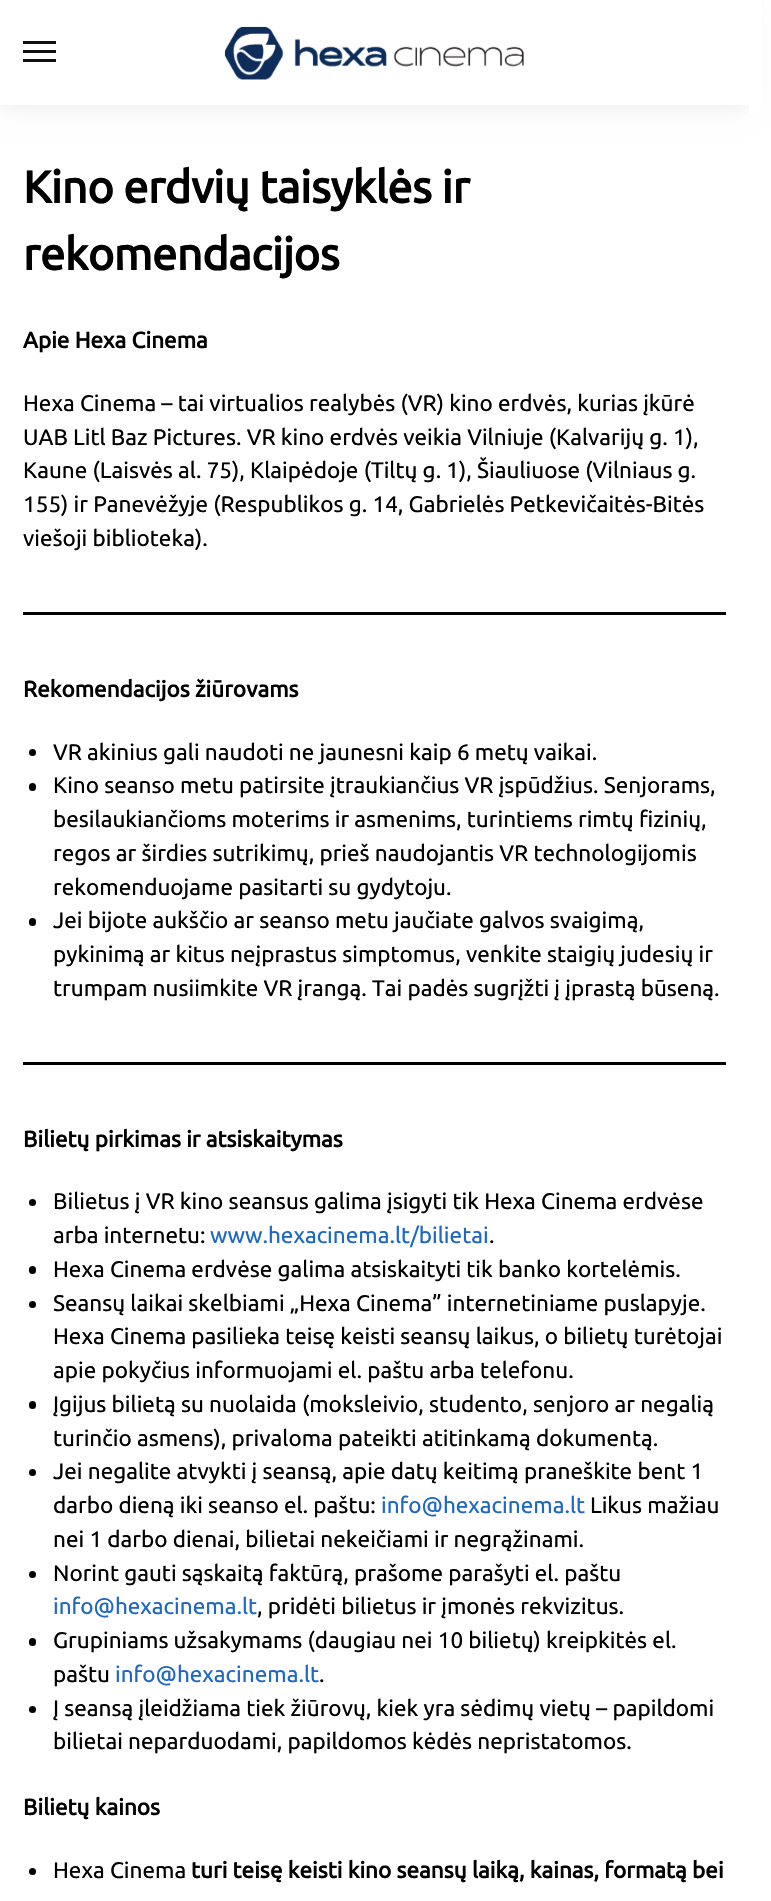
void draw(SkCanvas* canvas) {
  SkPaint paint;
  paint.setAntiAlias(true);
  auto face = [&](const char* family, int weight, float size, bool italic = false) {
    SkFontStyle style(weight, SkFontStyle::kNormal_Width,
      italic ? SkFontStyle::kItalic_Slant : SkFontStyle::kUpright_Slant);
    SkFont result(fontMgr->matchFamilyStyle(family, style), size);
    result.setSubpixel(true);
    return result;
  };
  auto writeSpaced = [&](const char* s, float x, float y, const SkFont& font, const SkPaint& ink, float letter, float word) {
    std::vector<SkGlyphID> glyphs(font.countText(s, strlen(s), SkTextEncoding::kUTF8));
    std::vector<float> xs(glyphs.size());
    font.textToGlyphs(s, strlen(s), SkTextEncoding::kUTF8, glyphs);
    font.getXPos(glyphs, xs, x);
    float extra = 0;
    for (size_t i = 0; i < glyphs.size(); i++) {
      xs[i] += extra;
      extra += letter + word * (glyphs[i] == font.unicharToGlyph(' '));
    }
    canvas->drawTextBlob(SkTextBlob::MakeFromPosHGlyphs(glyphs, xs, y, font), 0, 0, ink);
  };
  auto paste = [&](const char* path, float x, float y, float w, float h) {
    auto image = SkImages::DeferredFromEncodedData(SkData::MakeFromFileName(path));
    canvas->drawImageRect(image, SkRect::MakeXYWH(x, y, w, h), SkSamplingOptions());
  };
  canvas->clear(0xffffffff);
  paint.setColor(0x14000000);
  paint.setMaskFilter(SkMaskFilter::MakeBlur(kNormal_SkBlurStyle, 11));
  canvas->drawRect(SkRect::MakeXYWH(0, 2, 749, 105), paint);
  paint.setMaskFilter(nullptr);
  {
    const struct { float x, y, w, h; SkColor color; } items[] = {
      {0, 0, 749, 105, 0xffffffff},
      {23, 41, 33, 3, 0xff111111},
      {23, 50, 33, 3, 0xff111111},
      {23, 59, 33, 3, 0xff111111},
    };
    for (auto [x, y, w, h, color] : items) {
      paint.setColor(color);
      canvas->drawRect(SkRect::MakeXYWH(x, y, w, h), paint);
    }
  }
  paste("img/1.png", 224, 26, 300, 54);
  paint.setColor(0xffffffff);
  canvas->drawRect(SkRect::MakeXYWH(749, 0, 13, 114), paint);
  paint.setColor(0xff000000);
  canvas->drawRect(SkRect::MakeXYWH(23, 612, 703, 3), paint);
  canvas->drawCircle(32.5f, 752.5f, 3.5f, paint);
  canvas->drawRoundRect(SkRect::MakeXYWH(29, 783, 7, 8), 3.5f, 3.5f, paint);
  canvas->drawRoundRect(SkRect::MakeXYWH(29, 918, 7, 8), 3.5f, 3.5f, paint);
  canvas->drawRect(SkRect::MakeXYWH(23, 1062, 703, 3), paint);
  canvas->drawCircle(32.5f, 1202.5f, 3.5f, paint);
  canvas->drawRoundRect(SkRect::MakeXYWH(29, 1266, 7, 8), 3.5f, 3.5f, paint);
  canvas->drawCircle(32.5f, 1304.5f, 3.5f, paint);
  canvas->drawRoundRect(SkRect::MakeXYWH(29, 1401, 7, 8), 3.5f, 3.5f, paint);
  canvas->drawCircle(32.5f, 1472.5f, 3.5f, paint);
  canvas->drawCircle(32.5f, 1574.5f, 3.5f, paint);
  canvas->drawRoundRect(SkRect::MakeXYWH(29, 1638, 7, 8), 3.5f, 3.5f, paint);
  canvas->drawCircle(32.5f, 1709.5f, 3.5f, paint);
  canvas->drawCircle(32.5f, 1871.5f, 3.5f, paint);
  auto f0 = face("Ubuntu", 700, 45);
  writeSpaced("Kino erdvių taisyklės ir", 23, 203, f0, paint, -0.45f, 0);
  writeSpaced("rekomendacijos", 23, 270, f0, paint, -0.45f, 0);
  auto f1 = face("Ubuntu", 700, 22.5f);
  canvas->drawString("Apie Hexa Cinema", 23, 348, f1, paint);
  auto f2 = face("Ubuntu", 400, 22.5f);
  {
    const struct { const char* s; float x, y; } items[] = {
      {"Hexa Cinema – tai virtualios realybės (VR) kino erdvės, kurias įkūrė", 23, 411},
      {"UAB Litl Baz Pictures. VR kino erdvės veikia Vilniuje (Kalvarijų g. 1),", 23, 445},
      {"Kaune (Laisvės al. 75), Klaipėdoje (Tiltų g. 1), Šiauliuose (Vilniaus g.", 23, 478},
      {"155) ir Panevėžyje (Respublikos g. 14, Gabrielės Petkevičaitės-Bitės", 23, 512},
      {"viešoji biblioteka).", 23, 546},
    };
    for (auto [s, x, y] : items) {
      canvas->drawString(s, x, y, f2, paint);
    }
  }
  canvas->drawString("Rekomendacijos žiūrovams", 23, 697, f1, paint);
  {
    const struct { const char* s; float x, y; } items[] = {
      {"VR akinius gali naudoti ne jaunesni kaip 6 metų vaikai.", 53, 760},
      {"Kino seanso metu patirsite įtraukiančius VR įspūdžius. Senjorams,", 53, 793},
      {"besilaukiančioms moterims ir asmenims, turintiems rimtų fizinių,", 53, 827},
      {"regos ar širdies sutrikimų, prieš naudojantis VR technologijomis", 53, 861},
      {"rekomenduojame pasitarti su gydytoju.", 53, 895},
      {"Jei bijote aukščio ar seanso metu jaučiate galvos svaigimą,", 53, 928},
      {"pykinimą ar kitus neįprastus simptomus, venkite staigių judesių ir", 53, 962},
      {"trumpam nusiimkite VR įrangą. Tai padės sugrįžti į įprastą būseną.", 53, 996},
    };
    for (auto [s, x, y] : items) {
      canvas->drawString(s, x, y, f2, paint);
    }
  }
  canvas->drawString("Bilietų pirkimas ir atsiskaitymas", 23, 1147, f1, paint);
  canvas->drawString("Bilietus į VR kino seansus galima įsigyti tik Hexa Cinema erdvėse", 53, 1209, f2, paint);
  canvas->drawString("arba internetu:", 53, 1243, f2, paint);
  paint.setColor(0xff1e68c4);
  canvas->drawString("www.hexacinema.lt/bilietai", 210, 1243, f2, paint);
  paint.setColor(0xff000000);
  {
    const struct { const char* s; float x, y; } items[] = {
      {".", 489, 1243},
      {"Hexa Cinema erdvėse galima atsiskaityti tik banko kortelėmis.", 53, 1277},
      {"Seansų laikai skelbiami „Hexa Cinema” internetiniame puslapyje.", 53, 1311},
      {"Hexa Cinema pasilieka teisę keisti seansų laikus, o bilietų turėtojai", 53, 1344},
      {"apie pokyčius informuojami el. paštu arba telefonu.", 53, 1378},
      {"Įgijus bilietą su nuolaida (moksleivio, studento, senjoro ar negalią", 53, 1412},
      {"turinčio asmens), privaloma pateikti atitinkamą dokumentą.", 53, 1446},
      {"Jei negalite atvykti į seansą, apie datų keitimą praneškite bent 1", 53, 1479},
      {"darbo dieną iki seanso el. paštu:", 53, 1513},
    };
    for (auto [s, x, y] : items) {
      canvas->drawString(s, x, y, f2, paint);
    }
  }
  paint.setColor(0xff1e68c4);
  canvas->drawString("info@hexacinema.lt", 381, 1513, f2, paint);
  paint.setColor(0xff000000);
  {
    const struct { const char* s; float x, y; } items[] = {
      {"Likus mažiau", 590, 1513},
      {"nei 1 darbo dienai, bilietai nekeičiami ir negrąžinami.", 53, 1547},
      {"Norint gauti sąskaitą faktūrą, prašome parašyti el. paštu", 53, 1581},
    };
    for (auto [s, x, y] : items) {
      canvas->drawString(s, x, y, f2, paint);
    }
  }
  paint.setColor(0xff1e68c4);
  canvas->drawString("info@hexacinema.lt", 53, 1614, f2, paint);
  paint.setColor(0xff000000);
  {
    const struct { const char* s; float x, y; } items[] = {
      {", pridėti bilietus ir įmonės rekvizitus.", 257, 1614},
      {"Grupiniams užsakymams (daugiau nei 10 bilietų) kreipkitės el.", 53, 1648},
      {"paštu", 53, 1682},
    };
    for (auto [s, x, y] : items) {
      canvas->drawString(s, x, y, f2, paint);
    }
  }
  paint.setColor(0xff1e68c4);
  canvas->drawString("info@hexacinema.lt", 115, 1682, f2, paint);
  paint.setColor(0xff000000);
  {
    const struct { const char* s; float x, y; } items[] = {
      {".", 319, 1682},
      {"Į seansą įleidžiama tiek žiūrovų, kiek yra sėdimų vietų – papildomi", 53, 1716},
      {"bilietai neparduodami, papildomos kėdės nepristatomos.", 53, 1749},
    };
    for (auto [s, x, y] : items) {
      canvas->drawString(s, x, y, f2, paint);
    }
  }
  canvas->drawString("Bilietų kainos", 23, 1815, f1, paint);
  canvas->drawString("Hexa Cinema", 53, 1878, f2, paint);
  canvas->drawString("turi teisę keisti kino seansų laiką, kainas, formatą bei", 191, 1878, f1, paint);
}
